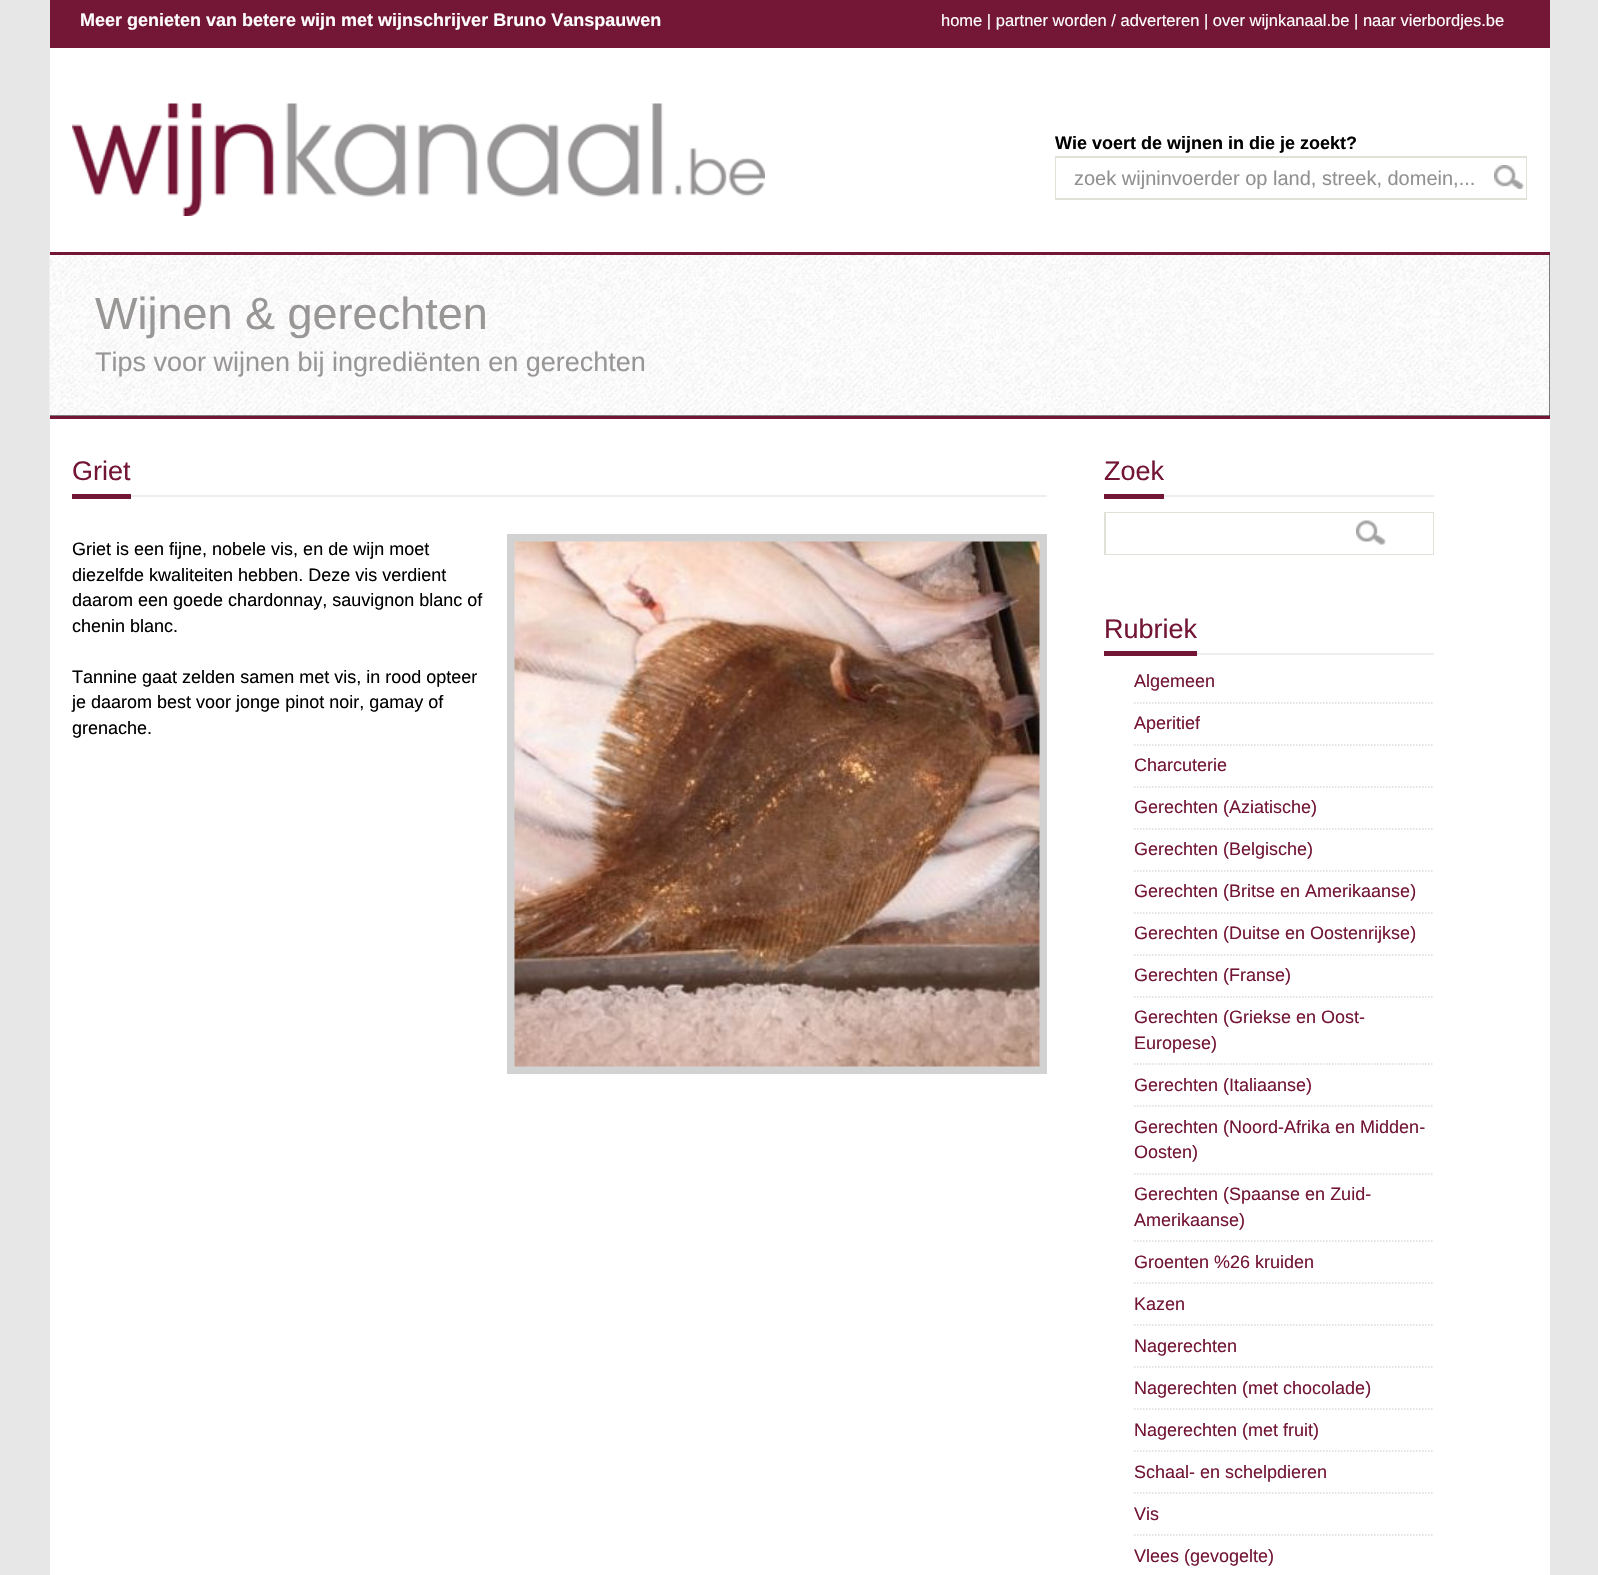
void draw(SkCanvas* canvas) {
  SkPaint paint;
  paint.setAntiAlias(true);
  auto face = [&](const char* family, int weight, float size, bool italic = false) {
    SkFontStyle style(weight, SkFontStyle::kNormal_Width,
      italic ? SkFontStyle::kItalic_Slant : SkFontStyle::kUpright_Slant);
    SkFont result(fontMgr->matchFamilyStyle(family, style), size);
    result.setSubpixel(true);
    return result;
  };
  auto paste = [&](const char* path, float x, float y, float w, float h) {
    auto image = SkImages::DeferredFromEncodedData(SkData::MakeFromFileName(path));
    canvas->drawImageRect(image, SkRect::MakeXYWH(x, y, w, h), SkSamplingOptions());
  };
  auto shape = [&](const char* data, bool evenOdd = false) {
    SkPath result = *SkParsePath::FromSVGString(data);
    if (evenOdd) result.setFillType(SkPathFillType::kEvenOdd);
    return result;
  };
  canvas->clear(0xffe7e7e7);
  paint.setColor(0xffffffff);
  canvas->drawRect(SkRect::MakeXYWH(50, 48, 1500, 1527), paint);
  paint.setColor(0xff741736);
  canvas->drawRect(SkRect::MakeXYWH(50, 0, 1500, 48), paint);
  paste("img/1.png", 72, 103, 693, 113);
  paint.setStroke(true);
  paint.setStrokeWidth(2);
  paint.setColor(0xffe0e1d7);
  canvas->drawRect(SkRect::MakeXYWH(1056, 157, 470, 42), paint);
  paint.setStroke(false);
  paint.setColor(0xffffffff);
  canvas->drawRect(SkRect::MakeXYWH(1056, 158, 470, 40), paint);
  paste("img/2.png", 1494, 165, 30, 24);
  {
    const struct { float x, y, w, h; SkColor color; } items[] = {
      {50, 255, 1500, 161, 0xff000000},
      {50, 252, 1500, 3, 0xff741736},
      {50, 416, 1500, 3, 0xff741736},
    };
    for (auto [x, y, w, h, color] : items) {
      paint.setColor(color);
      canvas->drawRect(SkRect::MakeXYWH(x, y, w, h), paint);
    }
  }
  paste("img/3.png", 49, 255, 1501, 161);
  paint.setColor(0xffeeeeee);
  canvas->drawRect(SkRect::MakeXYWH(131, 495, 916, 2), paint);
  paint.setColor(0xff731636);
  canvas->drawRect(SkRect::MakeXYWH(72, 494, 59, 5), paint);
  paint.setStroke(true);
  paint.setStrokeWidth(8);
  paint.setColor(0xffd3d2d2);
  canvas->drawRect(SkRect::MakeXYWH(511, 538, 532, 532), paint);
  paste("img/4.png", 514, 541, 526, 526);
  paint.setStroke(false);
  paint.setColor(0xffeeeeee);
  canvas->drawRect(SkRect::MakeXYWH(1164, 495, 270, 2), paint);
  paint.setColor(0xff731636);
  canvas->drawRect(SkRect::MakeXYWH(1104, 494, 60, 5), paint);
  paint.setStroke(true);
  paint.setStrokeWidth(2);
  paint.setColor(0xffe0e1d7);
  canvas->drawRect(SkRect::MakeXYWH(1105, 513, 328, 41), paint);
  paint.setStroke(false);
  paint.setColor(0xffffffff);
  canvas->drawRect(SkRect::MakeXYWH(1106, 513, 327, 41), paint);
  paste("img/5.png", 1356, 520, 30, 25);
  paint.setColor(0xffeeeeee);
  canvas->drawRect(SkRect::MakeXYWH(1197, 653, 237, 2), paint);
  paint.setColor(0xff731636);
  canvas->drawRect(SkRect::MakeXYWH(1104, 651, 93, 5), paint);
  paint.setStroke(true);
  paint.setStrokeWidth(1.5f);
  paint.setColor(0xffdbdbdb);
  paint.setPathEffect(SkDashPathEffect::Make({{1.5f, 1.5f}}, 0));
  canvas->drawPath(shape("M1134 703H1434"), paint);
  paint.setPathEffect(nullptr);
  paint.setPathEffect(SkDashPathEffect::Make({{1.5f, 1.5f}}, 0));
  canvas->drawPath(shape("M1134 745H1434"), paint);
  paint.setPathEffect(nullptr);
  paint.setPathEffect(SkDashPathEffect::Make({{1.5f, 1.5f}}, 0));
  canvas->drawPath(shape("M1134 787H1434"), paint);
  paint.setPathEffect(nullptr);
  paint.setPathEffect(SkDashPathEffect::Make({{1.5f, 1.5f}}, 0));
  canvas->drawPath(shape("M1134 829H1434"), paint);
  paint.setPathEffect(nullptr);
  paint.setPathEffect(SkDashPathEffect::Make({{1.5f, 1.5f}}, 0));
  canvas->drawPath(shape("M1134 871H1434"), paint);
  paint.setPathEffect(nullptr);
  paint.setPathEffect(SkDashPathEffect::Make({{1.5f, 1.5f}}, 0));
  canvas->drawPath(shape("M1134 913H1434"), paint);
  paint.setPathEffect(nullptr);
  paint.setPathEffect(SkDashPathEffect::Make({{1.5f, 1.5f}}, 0));
  canvas->drawPath(shape("M1134 955H1434"), paint);
  paint.setPathEffect(nullptr);
  paint.setPathEffect(SkDashPathEffect::Make({{1.5f, 1.5f}}, 0));
  canvas->drawPath(shape("M1134 997H1434"), paint);
  paint.setPathEffect(nullptr);
  paint.setPathEffect(SkDashPathEffect::Make({{1.5f, 1.5f}}, 0));
  canvas->drawPath(shape("M1134 1064H1434"), paint);
  paint.setPathEffect(nullptr);
  paint.setPathEffect(SkDashPathEffect::Make({{1.5f, 1.5f}}, 0));
  canvas->drawPath(shape("M1134 1106H1434"), paint);
  paint.setPathEffect(nullptr);
  paint.setPathEffect(SkDashPathEffect::Make({{1.5f, 1.5f}}, 0));
  canvas->drawPath(shape("M1134 1174H1434"), paint);
  paint.setPathEffect(nullptr);
  paint.setPathEffect(SkDashPathEffect::Make({{1.5f, 1.5f}}, 0));
  canvas->drawPath(shape("M1134 1241H1434"), paint);
  paint.setPathEffect(nullptr);
  paint.setPathEffect(SkDashPathEffect::Make({{1.5f, 1.5f}}, 0));
  canvas->drawPath(shape("M1134 1283H1434"), paint);
  paint.setPathEffect(nullptr);
  paint.setPathEffect(SkDashPathEffect::Make({{1.5f, 1.5f}}, 0));
  canvas->drawPath(shape("M1134 1325H1434"), paint);
  paint.setPathEffect(nullptr);
  paint.setPathEffect(SkDashPathEffect::Make({{1.5f, 1.5f}}, 0));
  canvas->drawPath(shape("M1134 1367H1434"), paint);
  paint.setPathEffect(nullptr);
  paint.setPathEffect(SkDashPathEffect::Make({{1.5f, 1.5f}}, 0));
  canvas->drawPath(shape("M1134 1409H1434"), paint);
  paint.setPathEffect(nullptr);
  paint.setPathEffect(SkDashPathEffect::Make({{1.5f, 1.5f}}, 0));
  canvas->drawPath(shape("M1134 1451H1434"), paint);
  paint.setPathEffect(nullptr);
  paint.setPathEffect(SkDashPathEffect::Make({{1.5f, 1.5f}}, 0));
  canvas->drawPath(shape("M1134 1493H1434"), paint);
  paint.setPathEffect(nullptr);
  paint.setPathEffect(SkDashPathEffect::Make({{1.5f, 1.5f}}, 0));
  canvas->drawPath(shape("M1134 1535H1434"), paint);
  paint.setPathEffect(nullptr);
  auto f0 = face("Liberation Sans", 700, 18);
  paint.setStroke(false);
  paint.setColor(0xffffffff);
  canvas->drawString("Meer genieten van betere wijn met wijnschrijver Bruno Vanspauwen", 80, 26, f0, paint);
  auto f1 = face("Liberation Sans", 400, 16.5f);
  canvas->drawString("home | partner worden / adverteren | over wijnkanaal.be | naar vierbordjes.be", 941, 26, f1, paint);
  paint.setColor(0xff000000);
  canvas->drawString("Wie voert de wijnen in die je zoekt?", 1055, 149, f0, paint);
  canvas->save();
  canvas->clipRect(SkRect::MakeXYWH(1074, 167, 413, 22));
  auto f2 = face("Liberation Sans", 400, 20);
  paint.setColor(0xff919191);
  canvas->drawString("zoek wijninvoerder op land, streek, domein,...", 1074, 185, f2, paint);
  canvas->restore();
  auto f3 = face("Liberation Sans", 400, 45);
  paint.setColor(0xff999696);
  canvas->drawString("Wijnen & gerechten", 95, 329, f3, paint);
  auto f4 = face("Liberation Sans", 400, 27);
  canvas->drawString("Tips voor wijnen bij ingrediënten en gerechten", 95, 371, f4, paint);
  paint.setColor(0xff731636);
  canvas->drawString("Griet", 72, 480, f4, paint);
  auto f5 = face("Liberation Sans", 400, 18);
  paint.setColor(0xff000000);
  {
    const struct { const char* s; float x, y; } items[] = {
      {"Griet is een fijne, nobele vis, en de wijn moet", 72, 555},
      {"diezelfde kwaliteiten hebben. Deze vis verdient", 72, 581},
      {"daarom een goede chardonnay, sauvignon blanc of", 72, 606},
      {"chenin blanc.", 72, 632},
      {"Tannine gaat zelden samen met vis, in rood opteer", 72, 683},
      {"je daarom best voor jonge pinot noir, gamay of", 72, 708},
      {"grenache.", 72, 734},
    };
    for (auto [s, x, y] : items) {
      canvas->drawString(s, x, y, f5, paint);
    }
  }
  paint.setColor(0xff731636);
  canvas->drawString("Zoek", 1104, 480, f4, paint);
  canvas->drawString("Rubriek", 1104, 638, f4, paint);
  {
    const struct { const char* s; float x, y; } items[] = {
      {"Algemeen", 1134, 687},
      {"Aperitief", 1134, 729},
      {"Charcuterie", 1134, 771},
      {"Gerechten (Aziatische)", 1134, 813},
      {"Gerechten (Belgische)", 1134, 855},
      {"Gerechten (Britse en Amerikaanse)", 1134, 897},
      {"Gerechten (Duitse en Oostenrijkse)", 1134, 939},
      {"Gerechten (Franse)", 1134, 981},
      {"Gerechten (Griekse en Oost-", 1134, 1023},
      {"Europese)", 1134, 1049},
      {"Gerechten (Italiaanse)", 1134, 1091},
      {"Gerechten (Noord-Afrika en Midden-", 1134, 1133},
      {"Oosten)", 1134, 1158},
      {"Gerechten (Spaanse en Zuid-", 1134, 1200},
      {"Amerikaanse)", 1134, 1226},
      {"Groenten %26 kruiden", 1134, 1268},
      {"Kazen", 1134, 1310},
      {"Nagerechten", 1134, 1352},
      {"Nagerechten (met chocolade)", 1134, 1394},
      {"Nagerechten (met fruit)", 1134, 1436},
      {"Schaal- en schelpdieren", 1134, 1478},
      {"Vis", 1134, 1520},
      {"Vlees (gevogelte)", 1134, 1562},
    };
    for (auto [s, x, y] : items) {
      canvas->drawString(s, x, y, f5, paint);
    }
  }
}
